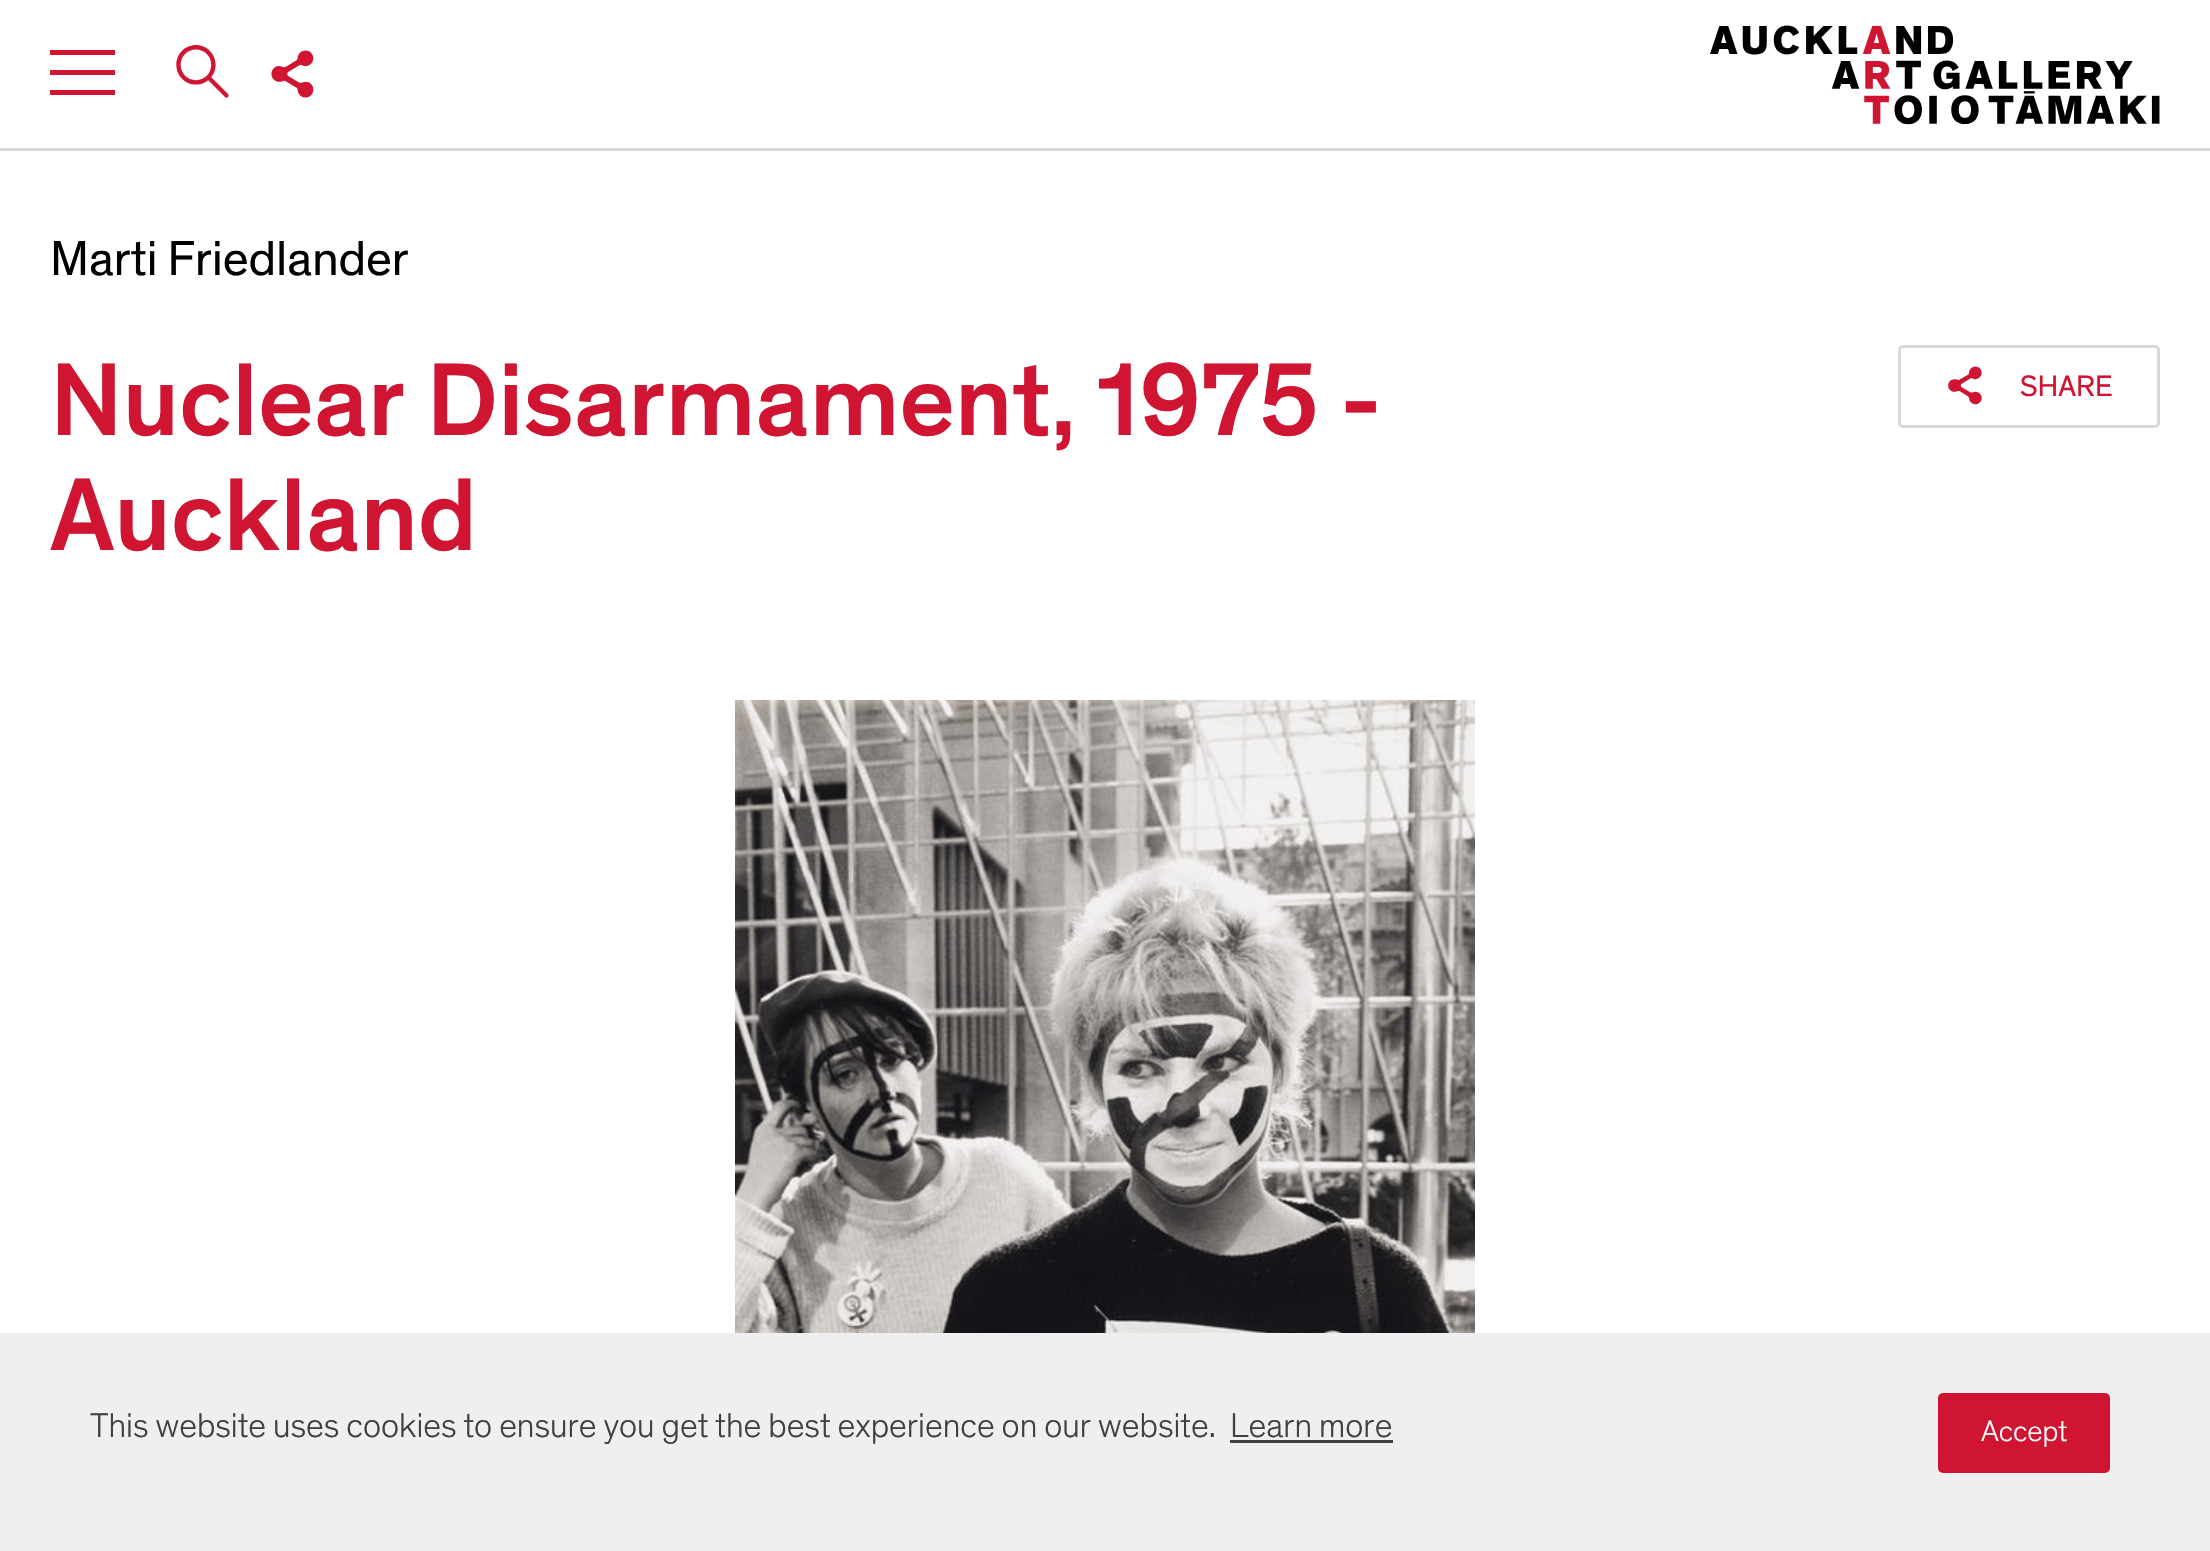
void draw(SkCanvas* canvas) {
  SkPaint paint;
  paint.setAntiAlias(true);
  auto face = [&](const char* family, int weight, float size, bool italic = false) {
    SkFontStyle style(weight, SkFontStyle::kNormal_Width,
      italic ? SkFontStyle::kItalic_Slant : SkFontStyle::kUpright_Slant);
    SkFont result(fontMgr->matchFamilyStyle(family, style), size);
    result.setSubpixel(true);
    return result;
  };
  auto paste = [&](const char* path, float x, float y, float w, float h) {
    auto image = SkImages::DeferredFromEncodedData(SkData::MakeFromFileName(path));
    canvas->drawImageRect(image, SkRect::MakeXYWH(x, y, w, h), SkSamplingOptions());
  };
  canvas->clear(0xffffffff);
  {
    const struct { float x, y, w, h; SkColor color; } items[] = {
      {0, 148, 2210, 3, 0xffd9d9d9},
      {50, 50, 65, 5, 0xffd01533},
      {50, 70, 65, 5, 0xffd01533},
      {50, 90, 65, 5, 0xffd01533},
    };
    for (auto [x, y, w, h, color] : items) {
      paint.setColor(color);
      canvas->drawRect(SkRect::MakeXYWH(x, y, w, h), paint);
    }
  }
  paste("img/1.png", 176, 45, 53, 53);
  paste("img/2.png", 271, 50, 43, 48);
  paste("img/3.png", 1710, 25, 450, 100);
  paint.setStroke(true);
  paint.setStrokeWidth(3);
  paint.setColor(0xffd9d9d9);
  canvas->drawRoundRect(SkRect::MakeXYWH(1899.5f, 346.5f, 259, 80), 3.5f, 3.5f, paint);
  paste("img/4.png", 1948, 366, 34, 39);
  paste("img/5.png", 735, 700, 740, 633);
  paint.setStroke(false);
  paint.setColor(0xffefefef);
  canvas->drawRect(SkRect::MakeXYWH(0, 1333, 2210, 218), paint);
  paint.setColor(0xff404040);
  canvas->drawRect(SkRect::MakeXYWH(1230, 1440, 163, 3), paint);
  paint.setColor(0xffd01533);
  canvas->drawRoundRect(SkRect::MakeXYWH(1938, 1393, 172, 80), 5, 5, paint);
  auto f0 = face("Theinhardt", 400, 50);
  paint.setColor(0xff000000);
  canvas->drawString("Marti Friedlander", 50, 275, f0, paint);
  auto f1 = face("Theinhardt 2", 400, 105);
  paint.setColor(0xffd01533);
  canvas->drawString("Nuclear Disarmament, 1975 -", 50, 435, f1, paint);
  canvas->drawString("Auckland", 50, 550, f1, paint);
  auto f2 = face("Theinhardt", 400, 30);
  canvas->drawString("SHARE", 2020, 396, f2, paint);
  auto f3 = face("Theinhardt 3", 400, 35);
  paint.setColor(0xff404040);
  canvas->drawString("This website uses cookies to ensure you get the best experience on our website.", 90, 1437, f3, paint);
  canvas->drawString("Learn more", 1230, 1437, f3, paint);
  auto f4 = face("Theinhardt 3", 400, 30);
  paint.setColor(0xffffffff);
  canvas->drawString("Accept", 1981, 1441, f4, paint);
}
